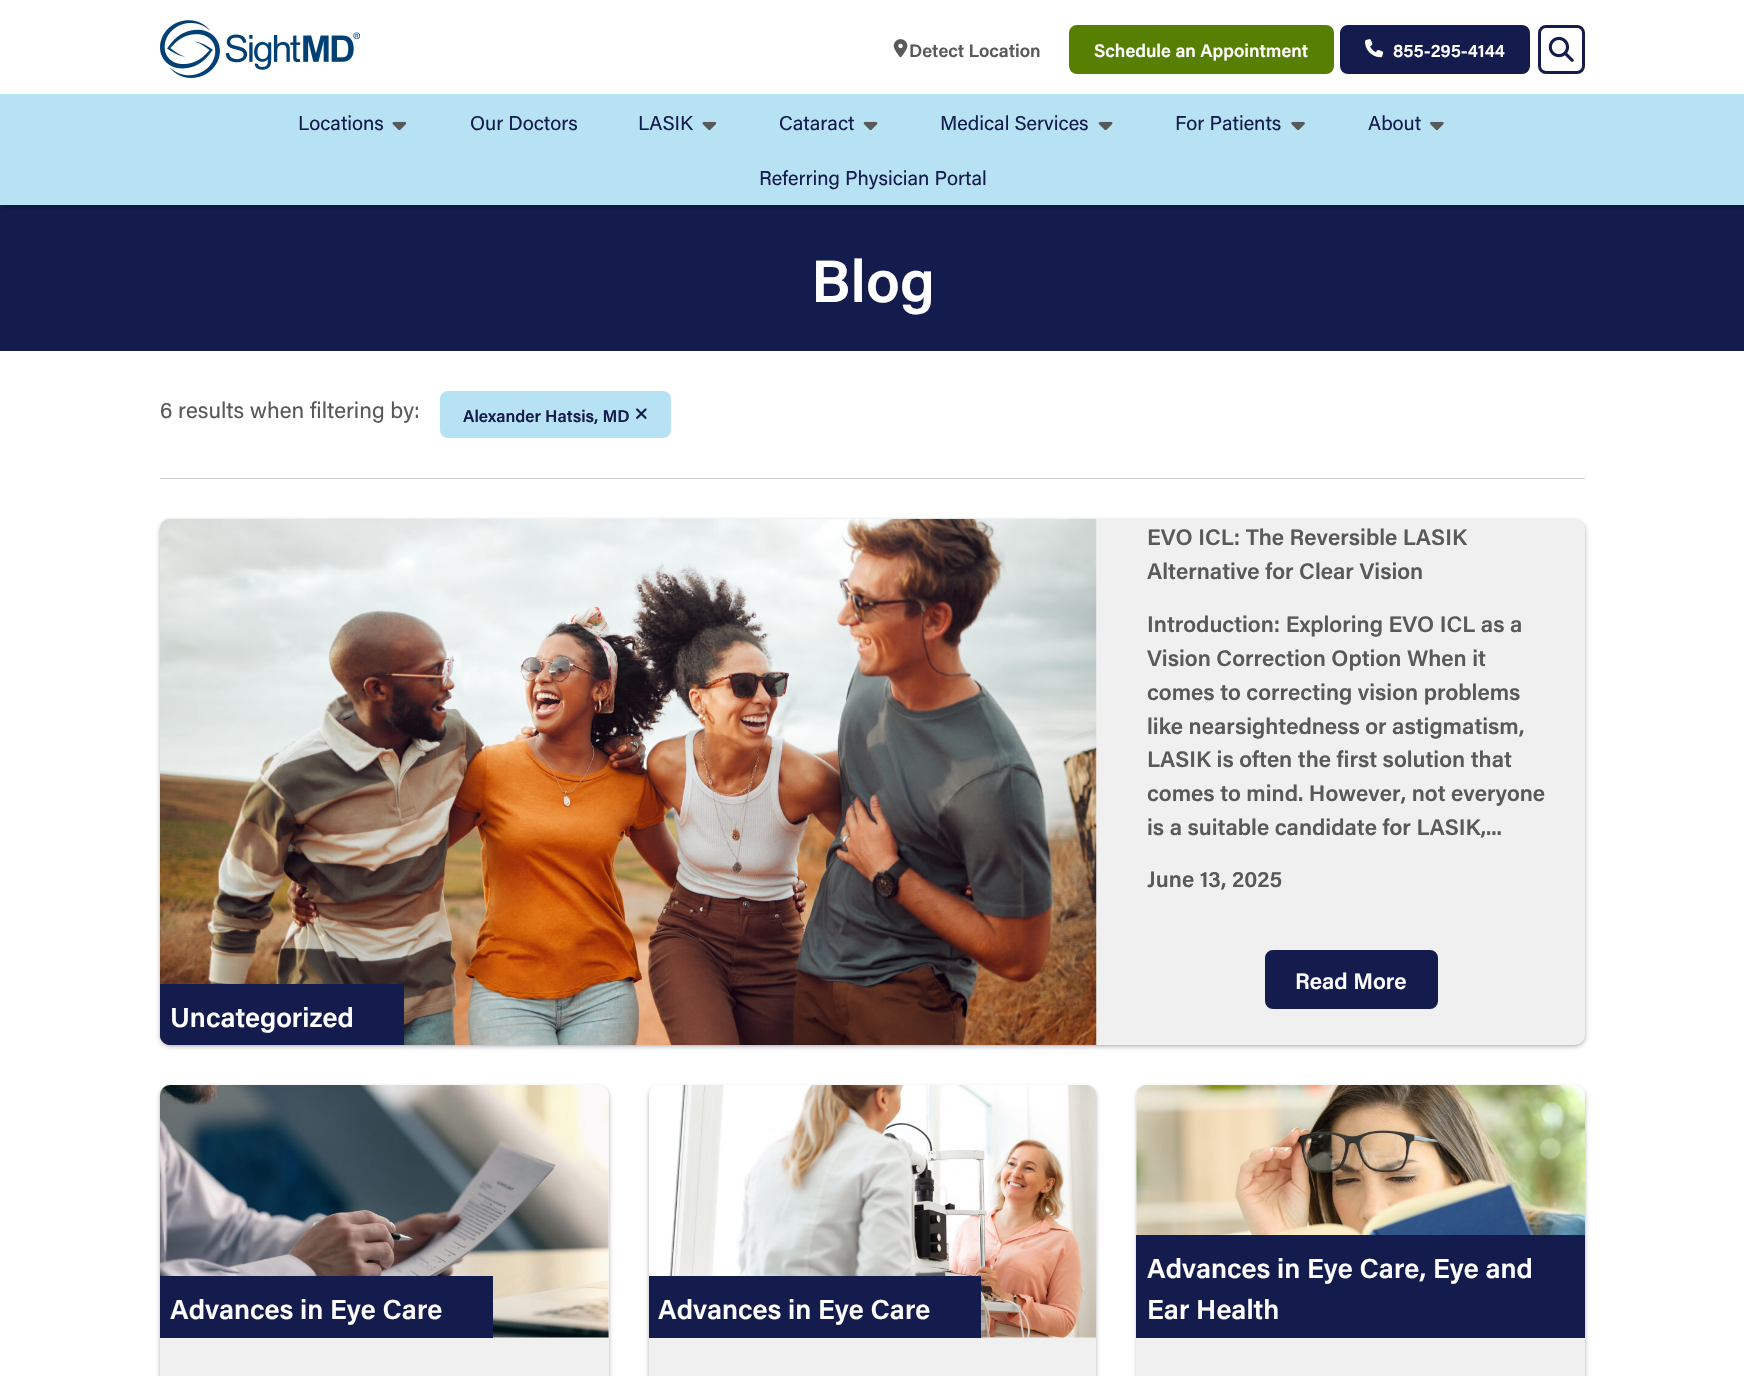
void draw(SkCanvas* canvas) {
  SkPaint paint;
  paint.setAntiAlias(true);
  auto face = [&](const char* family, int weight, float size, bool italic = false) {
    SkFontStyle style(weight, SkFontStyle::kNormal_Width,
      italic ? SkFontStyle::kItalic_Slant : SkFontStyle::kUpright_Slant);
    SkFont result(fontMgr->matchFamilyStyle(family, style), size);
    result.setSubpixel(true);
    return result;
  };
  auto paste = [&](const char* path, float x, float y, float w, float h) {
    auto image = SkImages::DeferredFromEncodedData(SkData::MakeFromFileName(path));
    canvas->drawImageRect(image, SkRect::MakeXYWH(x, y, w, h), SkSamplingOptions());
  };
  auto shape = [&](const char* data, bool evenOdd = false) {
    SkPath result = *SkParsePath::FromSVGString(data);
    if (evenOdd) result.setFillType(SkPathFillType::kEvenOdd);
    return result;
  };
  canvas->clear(0xffffffff);
  paint.setColor(0xff141b4d);
  canvas->drawRect(SkRect::MakeXYWH(0, 205, 1744, 146), paint);
  canvas->save();
  canvas->clipRect(SkRect::MakeXYWH(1, 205, 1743, 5));
  paint.setColor(0x26000000);
  paint.setMaskFilter(SkMaskFilter::MakeBlur(kNormal_SkBlurStyle, 1.5f));
  canvas->drawRect(SkRect::MakeXYWH(3, 3, 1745, 205), paint);
  paint.setMaskFilter(nullptr);
  canvas->restore();
  paste("img/1.png", 160, 20, 200, 58);
  paste("img/2.png", 893, 39, 15, 19);
  paint.setColor(0xff577f02);
  canvas->drawRoundRect(SkRect::MakeXYWH(1070.5f, 26.5f, 262, 46), 6.5f, 6.5f, paint);
  paint.setStroke(true);
  paint.setStrokeWidth(3);
  canvas->drawRoundRect(SkRect::MakeXYWH(1070.5f, 26.5f, 262, 46), 6.5f, 6.5f, paint);
  paint.setStroke(false);
  paint.setColor(0xff141b4d);
  canvas->drawRoundRect(SkRect::MakeXYWH(1341.5f, 26.5f, 187, 46), 6.5f, 6.5f, paint);
  paint.setStroke(true);
  canvas->drawRoundRect(SkRect::MakeXYWH(1341.5f, 26.5f, 187, 46), 6.5f, 6.5f, paint);
  paste("img/3.png", 1365, 39, 19, 19);
  canvas->drawRoundRect(SkRect::MakeXYWH(1539.5f, 26.5f, 44, 46), 6.5f, 6.5f, paint);
  paste("img/4.png", 1548, 36, 26, 26);
  paint.setStroke(false);
  paint.setColor(0xffb7e2f3);
  canvas->drawRect(SkRect::MakeXYWH(0, 94, 1744, 111), paint);
  paste("img/5.png", 392, 121, 15, 10);
  paste("img/5.png", 702, 121, 15, 10);
  paste("img/6.png", 863, 121, 15, 10);
  paste("img/6.png", 1098, 121, 15, 10);
  paste("img/7.png", 1291, 121, 14, 10);
  paste("img/8.png", 1430, 121, 14, 10);
  paint.setColor(0xffcccccc);
  canvas->drawRect(SkRect::MakeXYWH(160, 478, 1425, 1), paint);
  paint.setColor(0xffb7e2f3);
  canvas->drawRoundRect(SkRect::MakeXYWH(441.5f, 392.5f, 228, 44), 6.5f, 6.5f, paint);
  paint.setStroke(true);
  canvas->drawRoundRect(SkRect::MakeXYWH(441.5f, 392.5f, 228, 44), 6.5f, 6.5f, paint);
  paste("img/9.png", 636, 408, 11, 11);
  paint.setStroke(false);
  paint.setColor(0x4d000000);
  paint.setMaskFilter(SkMaskFilter::MakeBlur(kNormal_SkBlurStyle, 2));
  canvas->drawRoundRect(SkRect::MakeXYWH(161, 521, 1423, 524), 9, 9, paint);
  paint.setMaskFilter(nullptr);
  paint.setColor(0x4032325d);
  paint.setMaskFilter(SkMaskFilter::MakeBlur(kNormal_SkBlurStyle, 3));
  canvas->drawRoundRect(SkRect::MakeXYWH(161, 523, 1423, 523), 9, 9, paint);
  paint.setMaskFilter(nullptr);
  paint.setColor(0xfff0f0f0);
  canvas->drawRoundRect(SkRect::MakeXYWH(160, 519, 1425, 526), 10, 10, paint);
  paint.setColor(0xff141b4d);
  canvas->drawRoundRect(SkRect::MakeXYWH(1266.5f, 951.5f, 170, 56), 6.5f, 6.5f, paint);
  paint.setStroke(true);
  canvas->drawRoundRect(SkRect::MakeXYWH(1266.5f, 951.5f, 170, 56), 6.5f, 6.5f, paint);
  paste("img/10.png", 160, 518, 937, 527);
  paint.setStroke(false);
  canvas->drawPath(shape("M160 984H404V1045H170C164.5 1045 160 1040.5 160 1035Z"), paint);
  paint.setColor(0x4d000000);
  paint.setMaskFilter(SkMaskFilter::MakeBlur(kNormal_SkBlurStyle, 2));
  canvas->drawRoundRect(SkRect::MakeXYWH(161, 1088, 447, 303), 9, 9, paint);
  paint.setMaskFilter(nullptr);
  paint.setColor(0x4032325d);
  paint.setMaskFilter(SkMaskFilter::MakeBlur(kNormal_SkBlurStyle, 3));
  canvas->drawRoundRect(SkRect::MakeXYWH(161, 1089, 447, 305), 9, 9, paint);
  paint.setMaskFilter(nullptr);
  paint.setColor(0xfff0f0f0);
  canvas->drawRoundRect(SkRect::MakeXYWH(160, 1085, 449, 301), 10, 10, paint);
  paste("img/11.png", 160, 1085, 449, 253);
  paint.setColor(0xff141b4d);
  canvas->drawRect(SkRect::MakeXYWH(160, 1276, 333, 62), paint);
  paint.setColor(0x4d000000);
  paint.setMaskFilter(SkMaskFilter::MakeBlur(kNormal_SkBlurStyle, 2));
  canvas->drawRoundRect(SkRect::MakeXYWH(650, 1088, 445, 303), 9, 9, paint);
  paint.setMaskFilter(nullptr);
  paint.setColor(0x4032325d);
  paint.setMaskFilter(SkMaskFilter::MakeBlur(kNormal_SkBlurStyle, 3));
  canvas->drawRoundRect(SkRect::MakeXYWH(650, 1089, 445, 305), 9, 9, paint);
  paint.setMaskFilter(nullptr);
  paint.setColor(0xfff0f0f0);
  canvas->drawRoundRect(SkRect::MakeXYWH(649, 1085, 447, 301), 10, 10, paint);
  paste("img/12.png", 649, 1085, 447, 253);
  paint.setColor(0xff141b4d);
  canvas->drawRect(SkRect::MakeXYWH(649, 1276, 332, 62), paint);
  paint.setColor(0x4d000000);
  paint.setMaskFilter(SkMaskFilter::MakeBlur(kNormal_SkBlurStyle, 2));
  canvas->drawRoundRect(SkRect::MakeXYWH(1138, 1088, 446, 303), 9, 9, paint);
  paint.setMaskFilter(nullptr);
  paint.setColor(0x4032325d);
  paint.setMaskFilter(SkMaskFilter::MakeBlur(kNormal_SkBlurStyle, 3));
  canvas->drawRoundRect(SkRect::MakeXYWH(1138, 1089, 446, 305), 9, 9, paint);
  paint.setMaskFilter(nullptr);
  paint.setColor(0xfff0f0f0);
  canvas->drawRoundRect(SkRect::MakeXYWH(1136, 1085, 449, 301), 10, 10, paint);
  paste("img/13.png", 1136, 1085, 449, 150);
  paint.setColor(0xff141b4d);
  canvas->drawRect(SkRect::MakeXYWH(1136, 1235, 449, 103), paint);
  auto f0 = face("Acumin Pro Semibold", 600, 18.1f);
  paint.setColor(0xff595959);
  canvas->drawString("Detect Location", 909, 57, f0, paint);
  paint.setColor(0xffffffff);
  canvas->drawString("Schedule an Appointment", 1094, 57, f0, paint);
  canvas->drawString("855-295-4144", 1393, 57, f0, paint);
  auto f1 = face("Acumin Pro", 400, 20);
  paint.setColor(0xff141b4d);
  {
    const struct { const char* s; float x, y; } items[] = {
      {"Locations", 298, 130},
      {"Our Doctors", 470, 130},
      {"LASIK", 638, 130},
      {"Cataract", 779, 130},
      {"Medical Services", 940, 130},
      {"For Patients", 1175, 130},
      {"About", 1368, 130},
      {"Referring Physician Portal", 759, 185},
    };
    for (auto [s, x, y] : items) {
      canvas->drawString(s, x, y, f1, paint);
    }
  }
  auto f2 = face("Acumin Pro Semibold", 600, 59.5f);
  paint.setColor(0xffffffff);
  canvas->drawString("Blog", 811, 302, f2, paint);
  auto f3 = face("Acumin Pro", 400, 22.5f);
  paint.setColor(0xff595959);
  canvas->drawString("6 results when filtering by:", 160, 418, f3, paint);
  auto f4 = face("Acumin Pro Semibold", 600, 16.9f);
  paint.setColor(0xff141b4d);
  canvas->drawString("Alexander Hatsis, MD", 463, 422, f4, paint);
  auto f5 = face("Acumin Pro Semibold", 600, 22.5f);
  paint.setColor(0xff595959);
  {
    const struct { const char* s; float x, y; } items[] = {
      {"EVO ICL: The Reversible LASIK", 1147, 545},
      {"Alternative for Clear Vision", 1147, 579},
      {"Introduction: Exploring EVO ICL as a", 1147, 632},
      {"Vision Correction Option When it", 1147, 666},
      {"comes to correcting vision problems", 1147, 700},
      {"like nearsightedness or astigmatism,", 1147, 734},
      {"LASIK is often the first solution that", 1147, 767},
      {"comes to mind. However, not everyone", 1147, 801},
      {"is a suitable candidate for LASIK,...", 1147, 835},
      {"June 13, 2025", 1147, 887},
    };
    for (auto [s, x, y] : items) {
      canvas->drawString(s, x, y, f5, paint);
    }
  }
  paint.setColor(0xffffffff);
  canvas->drawString("Read More", 1295, 989, f5, paint);
  auto f6 = face("Acumin Pro Semibold", 600, 27.5f);
  {
    const struct { const char* s; float x, y; } items[] = {
      {"Uncategorized", 170, 1027},
      {"Advances in Eye Care", 170, 1319},
      {"Advances in Eye Care", 658, 1319},
      {"Advances in Eye Care, Eye and", 1147, 1278},
      {"Ear Health", 1147, 1319},
    };
    for (auto [s, x, y] : items) {
      canvas->drawString(s, x, y, f6, paint);
    }
  }
}
